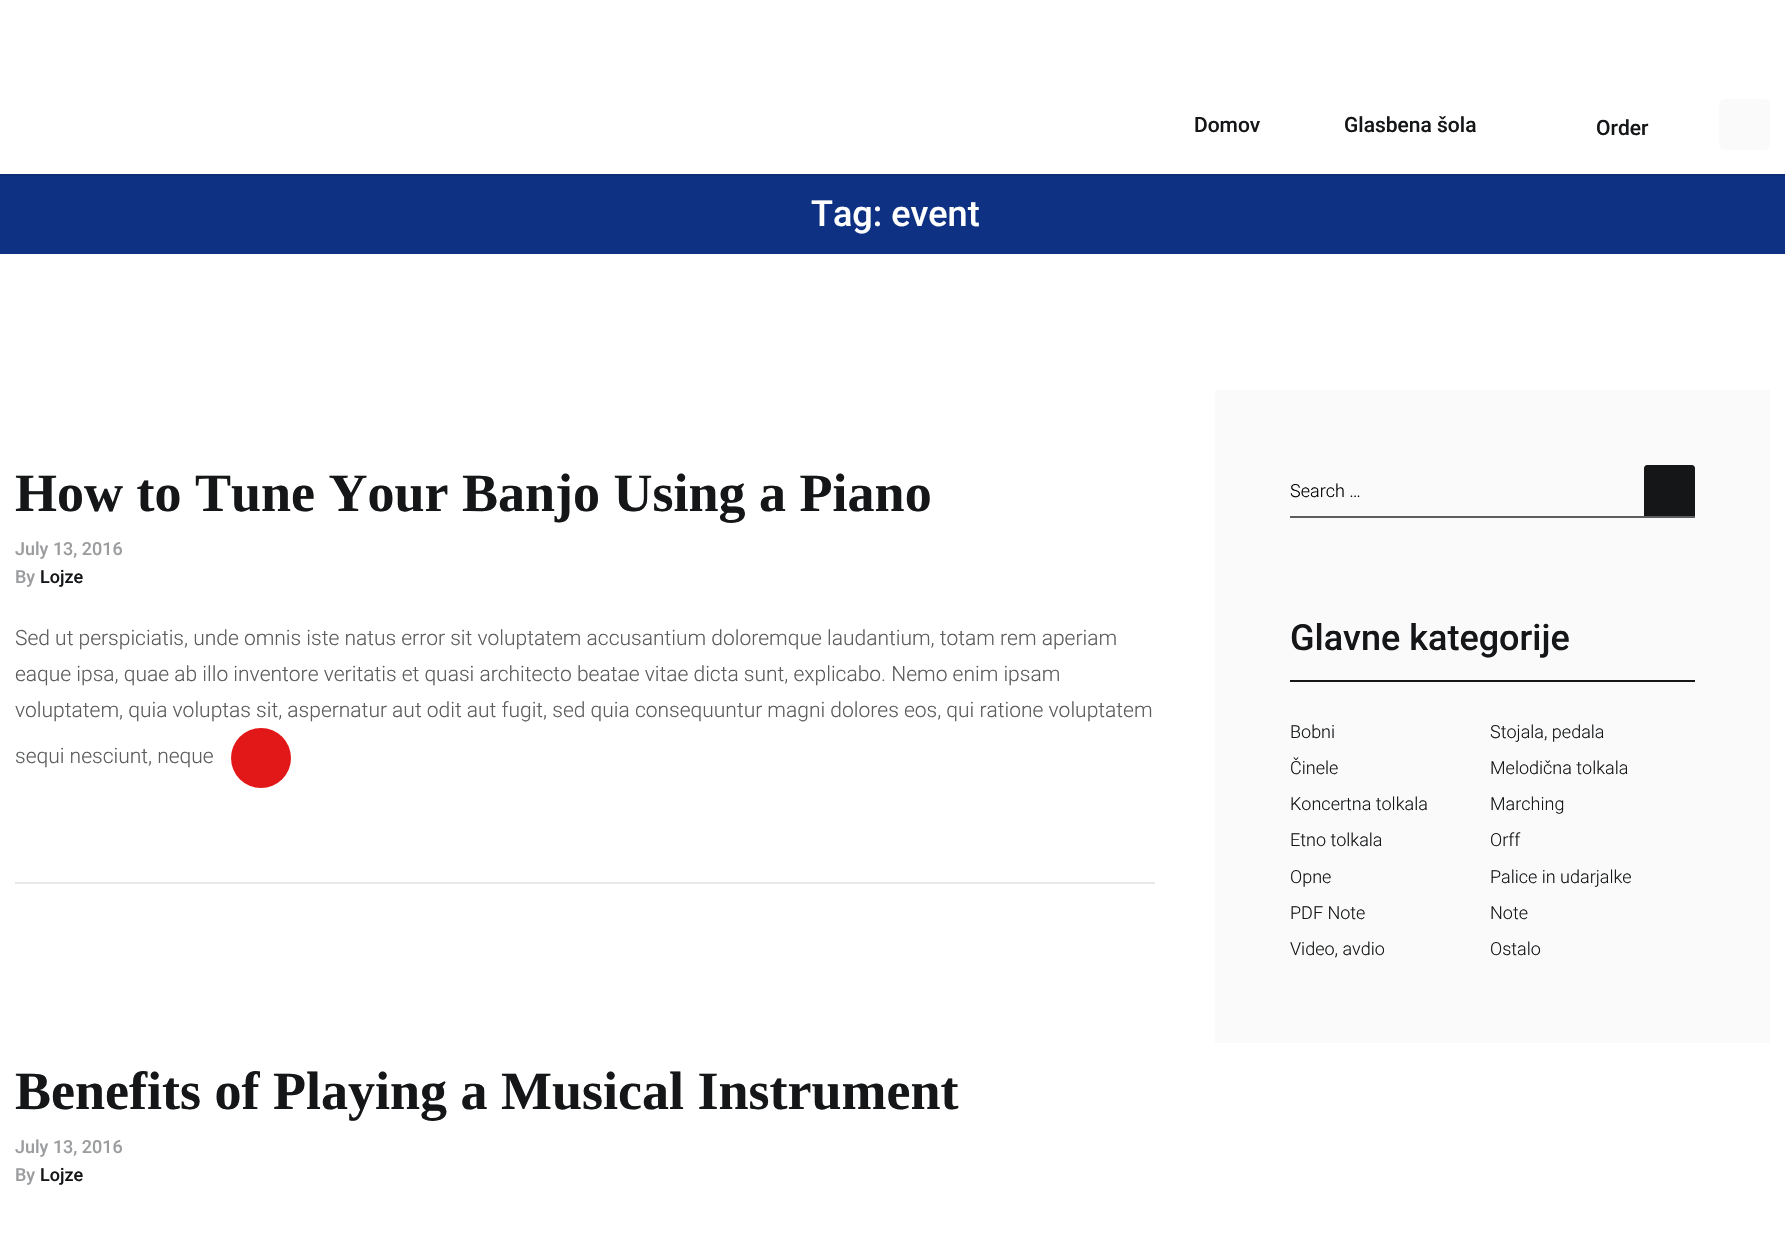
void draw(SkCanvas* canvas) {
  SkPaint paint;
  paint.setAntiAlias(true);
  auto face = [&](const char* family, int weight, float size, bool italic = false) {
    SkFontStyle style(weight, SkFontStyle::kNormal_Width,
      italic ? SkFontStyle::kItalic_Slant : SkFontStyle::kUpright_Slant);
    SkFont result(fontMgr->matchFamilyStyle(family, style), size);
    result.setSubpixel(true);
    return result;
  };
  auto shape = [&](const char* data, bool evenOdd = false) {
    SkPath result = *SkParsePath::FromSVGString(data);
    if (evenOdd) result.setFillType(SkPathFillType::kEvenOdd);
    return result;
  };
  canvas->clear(0xffffffff);
  paint.setColor(0xfffafafa);
  canvas->drawRoundRect(SkRect::MakeXYWH(1719, 99, 51, 51), 6, 6, paint);
  paint.setColor(0xff0e3184);
  canvas->drawRect(SkRect::MakeXYWH(0, 176, 1785, 78), paint);
  paint.setColor(0xff0d2c77);
  canvas->drawRect(SkRect::MakeXYWH(0, 174, 1785, 2), paint);
  paint.setColor(0xffe21818);
  canvas->drawCircle(261, 758, 30, paint);
  {
    const struct { float x, y, w, h; SkColor color; } items[] = {
      {15, 882, 1140, 2, 0xffe9e9e9},
      {1215, 390, 555, 653, 0xfffafafa},
      {1290, 516, 405, 2, 0xff5c5d5e},
    };
    for (auto [x, y, w, h, color] : items) {
      paint.setColor(color);
      canvas->drawRect(SkRect::MakeXYWH(x, y, w, h), paint);
    }
  }
  paint.setColor(0xff141618);
  canvas->drawPath(shape("M1647 465H1692C1693.5 465 1695 466.5 1695 468V516H1644V468C1644 466.5 1645.5 465 1647 465Z"), paint);
  canvas->drawRect(SkRect::MakeXYWH(1290, 680, 405, 2), paint);
  auto f0 = face("Roboto", 500, 21);
  {
    const struct { const char* s; float x, y; } items[] = {
      {"Domov", 1194, 132},
      {"Glasbena šola", 1344, 132},
      {"Order", 1596, 135},
    };
    for (auto [s, x, y] : items) {
      canvas->drawString(s, x, y, f0, paint);
    }
  }
  auto f1 = face("Roboto", 500, 36);
  paint.setColor(0xffffffff);
  canvas->drawString("Tag: event", 811, 226, f1, paint);
  auto f2 = face("Liberation Serif", 700, 54);
  paint.setColor(0xff141618);
  canvas->drawString("How to Tune Your Banjo Using a Piano", 15, 511, f2, paint);
  auto f3 = face("Roboto", 500, 18);
  paint.setColor(0xff9b9c9e);
  canvas->drawString("July 13, 2016", 15, 555, f3, paint);
  canvas->drawString("By", 15, 583, f3, paint);
  paint.setColor(0xff141618);
  canvas->drawString("Lojze", 40, 583, f3, paint);
  auto f4 = face("Roboto", 300, 21);
  paint.setColor(0xff5c5d5e);
  {
    const struct { const char* s; float x, y; } items[] = {
      {"Sed ut perspiciatis, unde omnis iste natus error sit voluptatem accusantium doloremque laudantium, totam rem aperiam", 15, 645},
      {"eaque ipsa, quae ab illo inventore veritatis et quasi architecto beatae vitae dicta sunt, explicabo. Nemo enim ipsam", 15, 681},
      {"voluptatem, quia voluptas sit, aspernatur aut odit aut fugit, sed quia consequuntur magni dolores eos, qui ratione voluptatem", 15, 717},
      {"sequi nesciunt, neque", 15, 763},
    };
    for (auto [s, x, y] : items) {
      canvas->drawString(s, x, y, f4, paint);
    }
  }
  paint.setColor(0xff141618);
  canvas->drawString("Benefits of Playing a Musical Instrument", 15, 1109, f2, paint);
  paint.setColor(0xff9b9c9e);
  canvas->drawString("July 13, 2016", 15, 1153, f3, paint);
  canvas->drawString("By", 15, 1181, f3, paint);
  paint.setColor(0xff141618);
  canvas->drawString("Lojze", 40, 1181, f3, paint);
  auto f5 = face("Roboto", 300, 18);
  paint.setColor(0xff000000);
  canvas->drawString("Search …", 1290, 497, f5, paint);
  paint.setColor(0xff141618);
  canvas->drawString("Glavne kategorije", 1290, 650, f1, paint);
  {
    const struct { const char* s; float x, y; } items[] = {
      {"Bobni", 1290, 738},
      {"Stojala, pedala", 1490, 738},
      {"Činele", 1290, 774},
      {"Melodična tolkala", 1490, 774},
      {"Koncertna tolkala", 1290, 810},
      {"Marching", 1490, 810},
      {"Etno tolkala", 1290, 846},
      {"Orff", 1490, 846},
      {"Opne", 1290, 883},
      {"Palice in udarjalke", 1490, 883},
      {"PDF Note", 1290, 919},
      {"Note", 1490, 919},
      {"Video, avdio", 1290, 955},
      {"Ostalo", 1490, 955},
    };
    for (auto [s, x, y] : items) {
      canvas->drawString(s, x, y, f5, paint);
    }
  }
}
